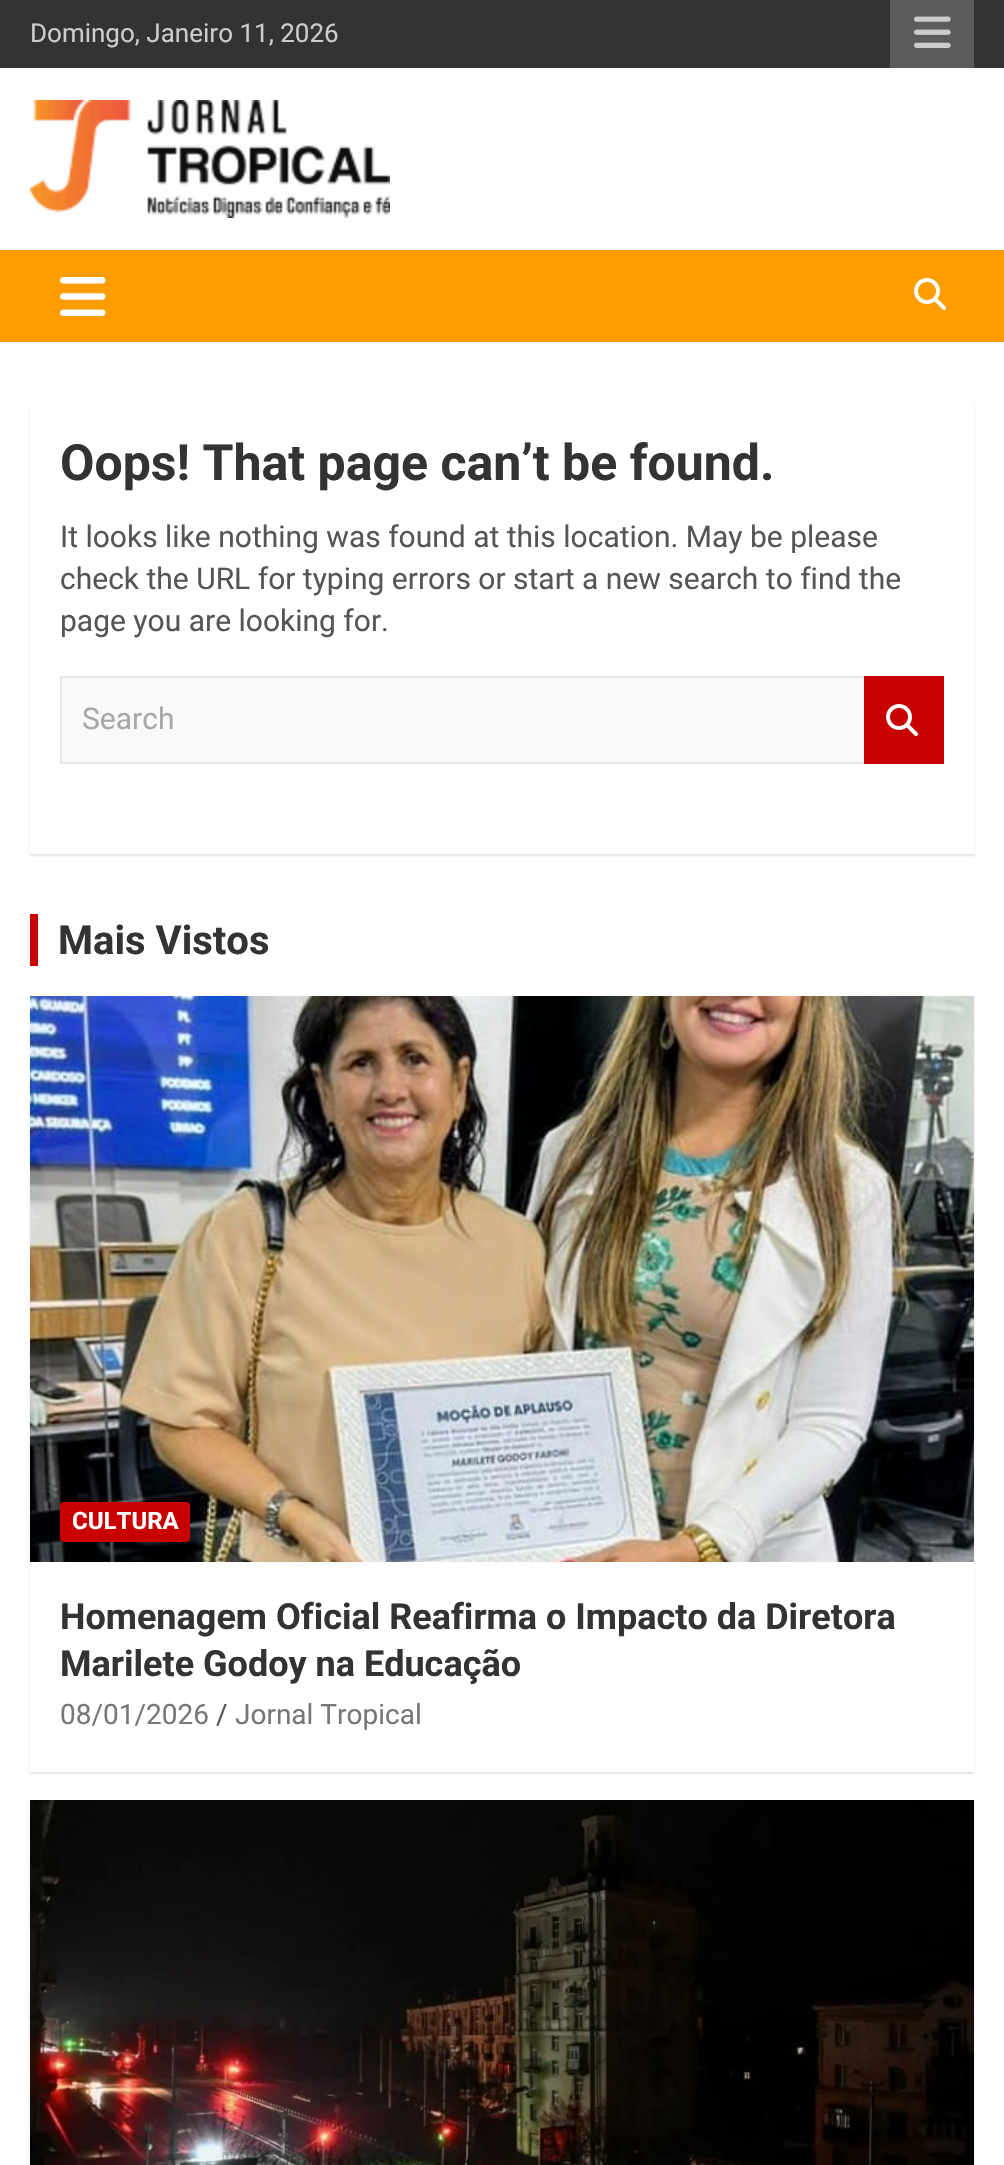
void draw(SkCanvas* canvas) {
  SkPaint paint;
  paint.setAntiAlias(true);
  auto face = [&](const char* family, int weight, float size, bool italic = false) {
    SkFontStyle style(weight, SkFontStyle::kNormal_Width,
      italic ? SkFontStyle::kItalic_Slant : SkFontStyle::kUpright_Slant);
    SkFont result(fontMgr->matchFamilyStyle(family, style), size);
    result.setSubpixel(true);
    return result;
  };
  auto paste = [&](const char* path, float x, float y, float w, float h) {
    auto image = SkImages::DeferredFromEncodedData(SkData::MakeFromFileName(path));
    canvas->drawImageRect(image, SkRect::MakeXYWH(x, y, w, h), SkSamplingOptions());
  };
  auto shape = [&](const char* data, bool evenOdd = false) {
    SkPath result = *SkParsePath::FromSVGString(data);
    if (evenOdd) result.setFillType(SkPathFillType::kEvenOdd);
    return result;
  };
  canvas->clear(0xffffffff);
  paint.setColor(0xff333333);
  canvas->drawRect(SkRect::MakeXYWH(0, 0, 1004, 68), paint);
  paint.setColor(0xff5c5c5c);
  canvas->drawRect(SkRect::MakeXYWH(890, 0, 84, 68), paint);
  paste("img/1.png", 914, 16, 37, 32);
  paste("img/2.png", 30, 100, 360, 118);
  paint.setColor(0xffff9d00);
  canvas->drawRect(SkRect::MakeXYWH(0, 250, 1004, 92), paint);
  paste("img/3.png", 60, 277, 46, 39);
  paste("img/4.png", 914, 278, 32, 32);
  canvas->save();
  canvas->clipPath(shape("M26 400H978V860H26ZM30 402H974V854H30Z", true), true);
  paint.setColor(0x1a000000);
  paint.setMaskFilter(SkMaskFilter::MakeBlur(kNormal_SkBlurStyle, 1));
  canvas->drawRect(SkRect::MakeXYWH(30, 404, 944, 452), paint);
  paint.setMaskFilter(nullptr);
  canvas->restore();
  paint.setColor(0xfff9f9f9);
  canvas->drawRect(SkRect::MakeXYWH(62, 678, 802, 84), paint);
  paint.setColor(0xffe8e8e8);
  canvas->drawPath(shape("M60 676H864V678H62Z"), paint);
  canvas->drawPath(shape("M864 764H60L62 762H864Z"), paint);
  paint.setColor(0x17000000);
  canvas->drawPath(shape("M60 764V676L62 678V762Z"), paint);
  paint.setColor(0xffc80000);
  canvas->drawRect(SkRect::MakeXYWH(864, 676, 80, 88), paint);
  paste("img/5.png", 886, 704, 32, 32);
  canvas->drawRect(SkRect::MakeXYWH(30, 914, 8, 52), paint);
  canvas->save();
  canvas->clipPath(shape("M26 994H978V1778H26ZM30 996H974V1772H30Z", true), true);
  paint.setColor(0x1a000000);
  paint.setMaskFilter(SkMaskFilter::MakeBlur(kNormal_SkBlurStyle, 1));
  canvas->drawRect(SkRect::MakeXYWH(30, 998, 944, 776), paint);
  paint.setMaskFilter(nullptr);
  canvas->restore();
  paste("img/6.png", 30, 996, 944, 566);
  paint.setColor(0xffc80000);
  canvas->drawRoundRect(SkRect::MakeXYWH(60, 1502, 130, 40), 4, 4, paint);
  paint.setColor(0x1a000000);
  paint.setMaskFilter(SkMaskFilter::MakeBlur(kNormal_SkBlurStyle, 1));
  canvas->drawRect(SkRect::MakeXYWH(30, 1802, 944, 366), paint);
  paint.setMaskFilter(nullptr);
  paste("img/7.png", 30, 1800, 944, 365);
  auto f0 = face("Roboto", 400, 26);
  paint.setColor(0xffcccccc);
  canvas->drawString("Domingo, Janeiro 11, 2026", 30, 42, f0, paint);
  auto f1 = face("Roboto", 700, 50);
  paint.setColor(0xff333333);
  canvas->drawString("Oops! That page can’t be found.", 60, 480, f1, paint);
  auto f2 = face("Roboto", 400, 30);
  paint.setColor(0xff555555);
  {
    const struct { const char* s; float x, y; } items[] = {
      {"It looks like nothing was found at this location. May be please", 60, 547},
      {"check the URL for typing errors or start a new search to find the", 60, 589},
      {"page you are looking for.", 60, 631},
    };
    for (auto [s, x, y] : items) {
      canvas->drawString(s, x, y, f2, paint);
    }
  }
  paint.setColor(0xffa7a7a7);
  canvas->drawString("Search", 82, 729, f2, paint);
  auto f3 = face("Roboto", 700, 40);
  paint.setColor(0xff333333);
  canvas->drawString("Mais Vistos", 58, 954, f3, paint);
  auto f4 = face("Roboto", 700, 24);
  paint.setColor(0xffffffff);
  canvas->drawString("CULTURA", 72, 1529, f4, paint);
  auto f5 = face("Roboto", 700, 36);
  paint.setColor(0xff333333);
  canvas->drawString("Homenagem Oficial Reafirma o Impacto da Diretora", 60, 1629, f5, paint);
  canvas->drawString("Marilete Godoy na Educação", 60, 1676, f5, paint);
  auto f6 = face("Roboto", 400, 28);
  paint.setColor(0xff777777);
  canvas->drawString("08/01/2026", 60, 1724, f6, paint);
  paint.setColor(0xff555555);
  canvas->drawString("/", 216, 1724, f6, paint);
  paint.setColor(0xff777777);
  canvas->drawString("Jornal Tropical", 235, 1724, f6, paint);
}
